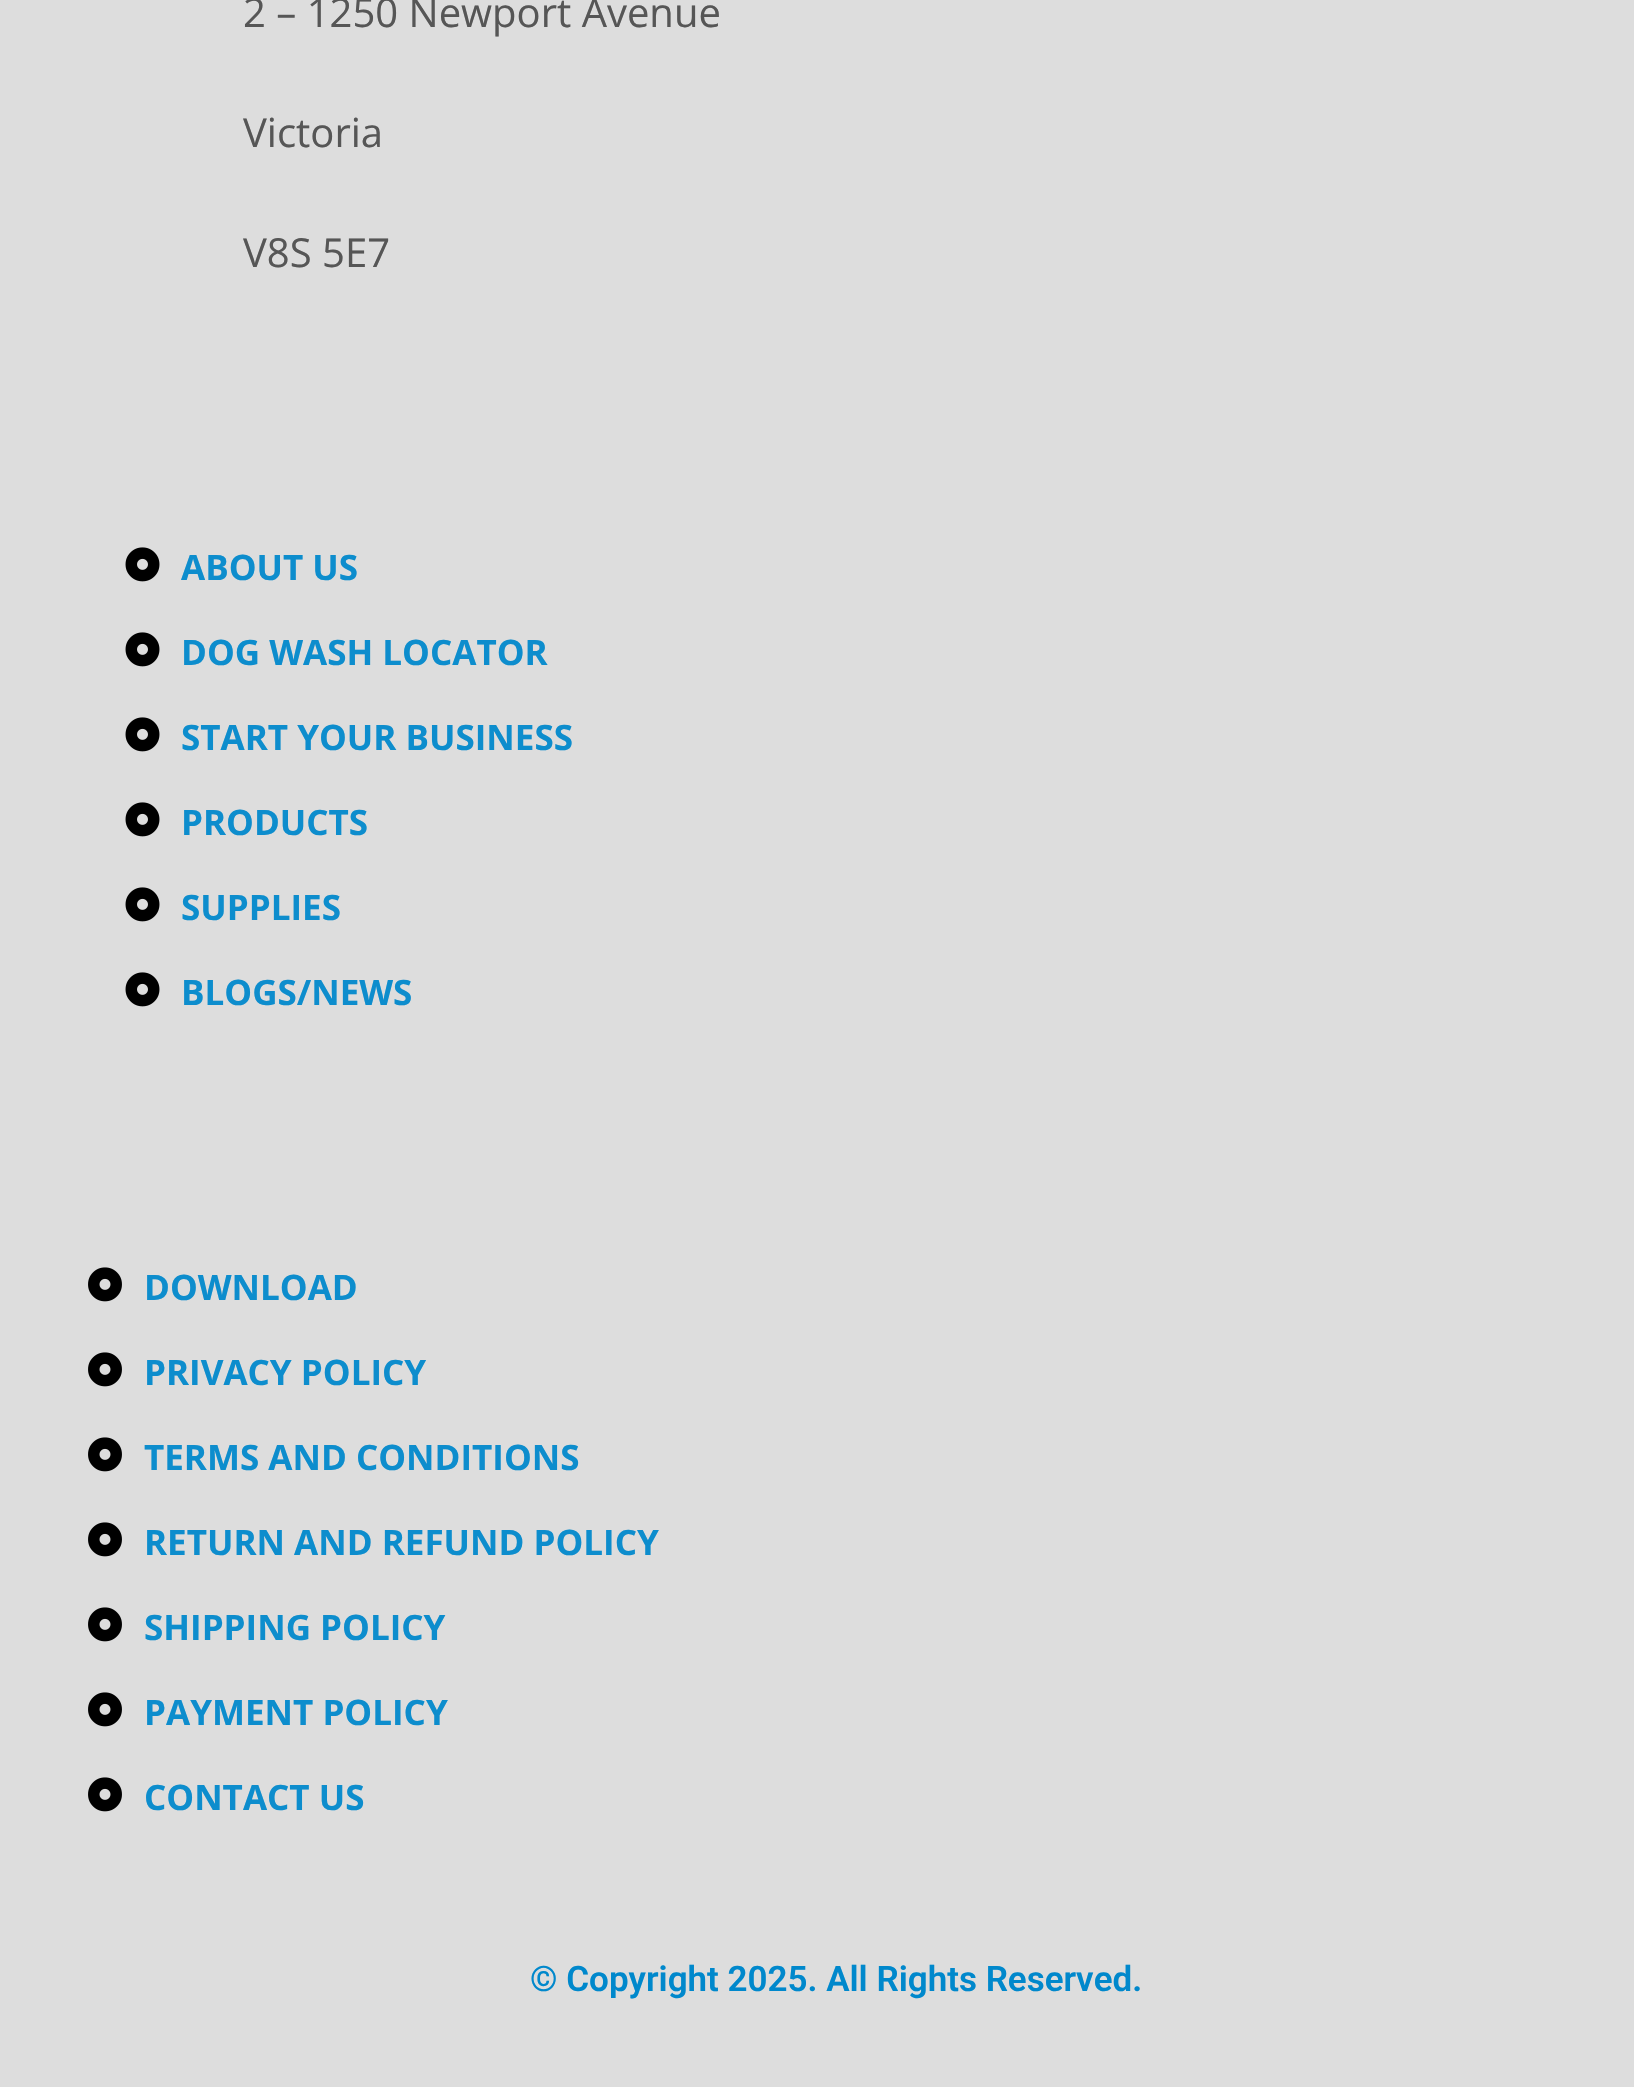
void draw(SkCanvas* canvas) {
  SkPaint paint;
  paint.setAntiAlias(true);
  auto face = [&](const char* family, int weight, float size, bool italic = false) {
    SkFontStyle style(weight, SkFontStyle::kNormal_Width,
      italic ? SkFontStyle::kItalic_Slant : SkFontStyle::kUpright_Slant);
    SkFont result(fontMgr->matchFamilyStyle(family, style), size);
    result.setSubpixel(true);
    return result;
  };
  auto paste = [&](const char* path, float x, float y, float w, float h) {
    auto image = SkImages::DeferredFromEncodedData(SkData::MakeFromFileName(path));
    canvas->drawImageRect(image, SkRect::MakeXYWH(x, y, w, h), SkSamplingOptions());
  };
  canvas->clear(0xffdddddd);
  paste("img/1.png", 125, 547, 35, 35);
  paste("img/1.png", 125, 632, 35, 35);
  paste("img/1.png", 125, 717, 35, 35);
  paste("img/1.png", 125, 802, 35, 35);
  paste("img/1.png", 125, 887, 35, 35);
  paste("img/1.png", 125, 972, 35, 35);
  paste("img/2.png", 88, 1267, 34, 35);
  paste("img/2.png", 88, 1352, 34, 35);
  paste("img/2.png", 88, 1437, 34, 35);
  paste("img/2.png", 88, 1522, 34, 35);
  paste("img/2.png", 88, 1607, 34, 35);
  paste("img/2.png", 88, 1692, 34, 35);
  paste("img/2.png", 88, 1777, 34, 35);
  auto f0 = face("Open Sans", 400, 40);
  paint.setColor(0xff565656);
  {
    const struct { const char* s; float x, y; } items[] = {
      {"2 – 1250 Newport Avenue", 243, 27},
      {"Victoria", 243, 147},
      {"V8S 5E7", 243, 267},
    };
    for (auto [s, x, y] : items) {
      canvas->drawString(s, x, y, f0, paint);
    }
  }
  auto f1 = face("Open Sans", 700, 35);
  paint.setColor(0xff0d8dcd);
  {
    const struct { const char* s; float x, y; } items[] = {
      {"ABOUT US", 181, 580},
      {"DOG WASH LOCATOR", 181, 665},
      {"START YOUR BUSINESS", 181, 750},
      {"PRODUCTS", 181, 835},
      {"SUPPLIES", 181, 920},
      {"BLOGS/NEWS", 181, 1005},
      {"DOWNLOAD", 144, 1300},
      {"PRIVACY POLICY", 144, 1385},
      {"TERMS AND CONDITIONS", 144, 1470},
      {"RETURN AND REFUND POLICY", 144, 1555},
      {"SHIPPING POLICY", 144, 1640},
      {"PAYMENT POLICY", 144, 1725},
      {"CONTACT US", 144, 1810},
    };
    for (auto [s, x, y] : items) {
      canvas->drawString(s, x, y, f1, paint);
    }
  }
  auto f2 = face("Roboto", 600, 35);
  paint.setColor(0xff0088cc);
  canvas->drawString("© Copyright 2025. All Rights Reserved.", 530, 1991, f2, paint);
}
